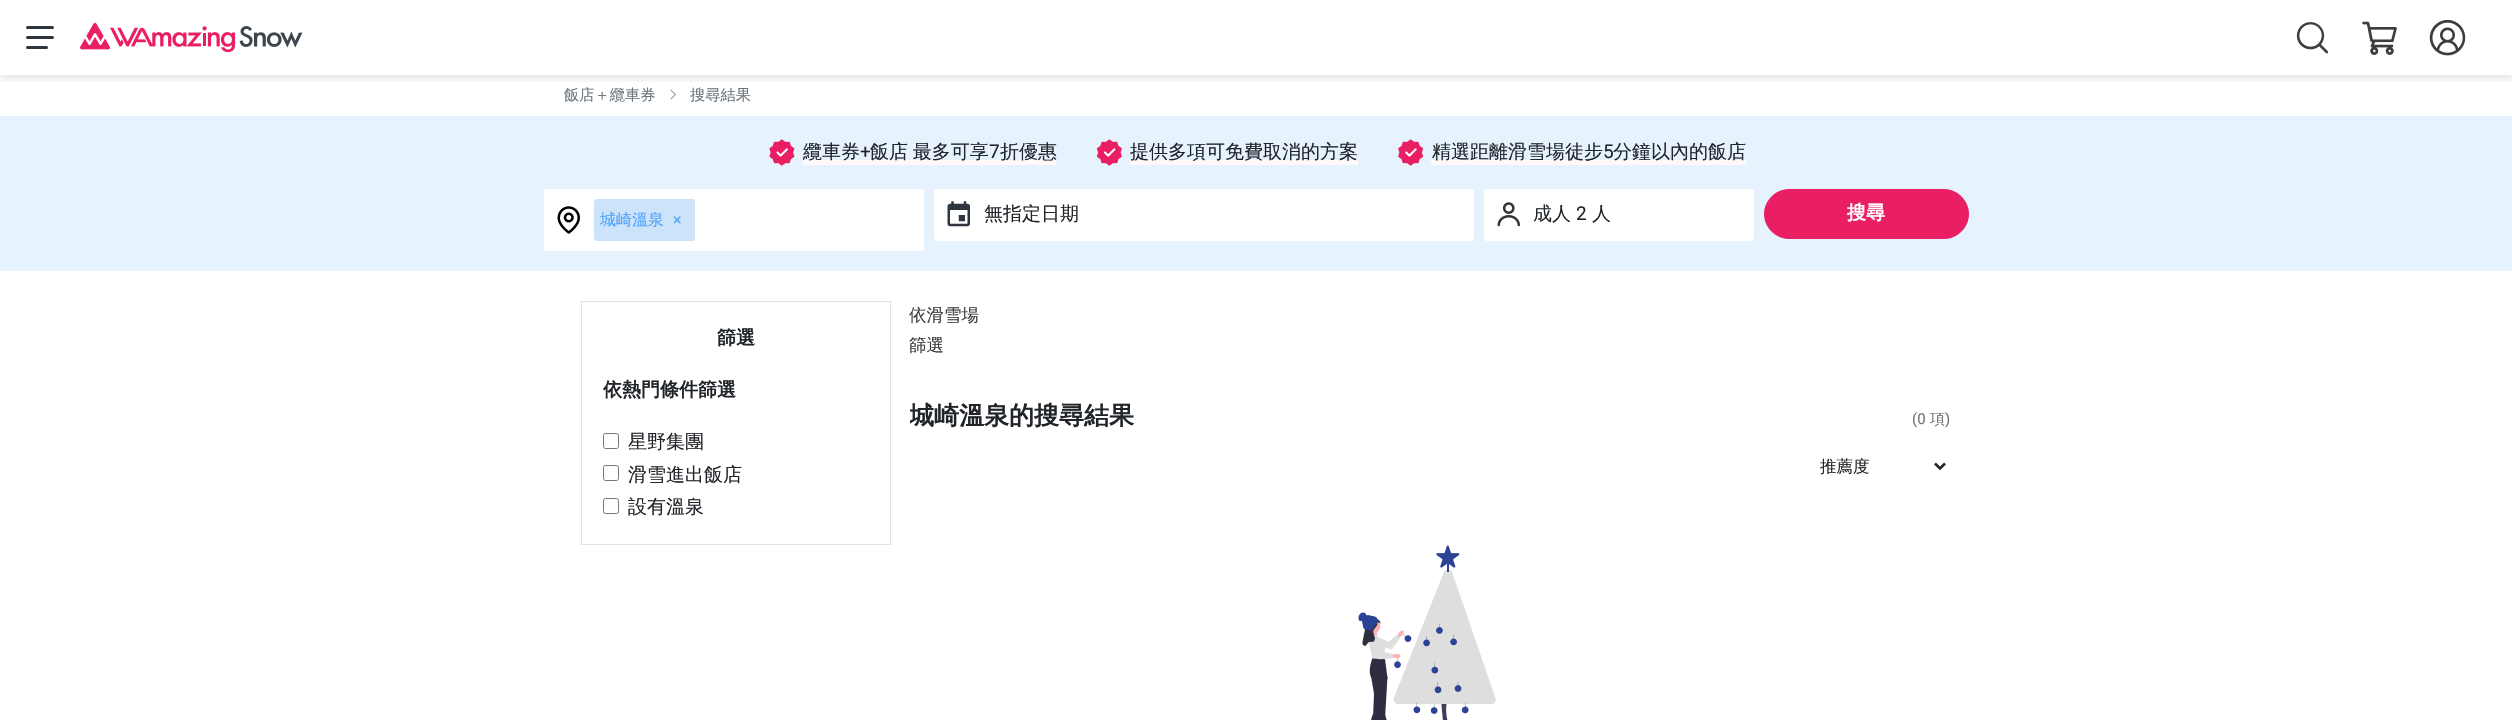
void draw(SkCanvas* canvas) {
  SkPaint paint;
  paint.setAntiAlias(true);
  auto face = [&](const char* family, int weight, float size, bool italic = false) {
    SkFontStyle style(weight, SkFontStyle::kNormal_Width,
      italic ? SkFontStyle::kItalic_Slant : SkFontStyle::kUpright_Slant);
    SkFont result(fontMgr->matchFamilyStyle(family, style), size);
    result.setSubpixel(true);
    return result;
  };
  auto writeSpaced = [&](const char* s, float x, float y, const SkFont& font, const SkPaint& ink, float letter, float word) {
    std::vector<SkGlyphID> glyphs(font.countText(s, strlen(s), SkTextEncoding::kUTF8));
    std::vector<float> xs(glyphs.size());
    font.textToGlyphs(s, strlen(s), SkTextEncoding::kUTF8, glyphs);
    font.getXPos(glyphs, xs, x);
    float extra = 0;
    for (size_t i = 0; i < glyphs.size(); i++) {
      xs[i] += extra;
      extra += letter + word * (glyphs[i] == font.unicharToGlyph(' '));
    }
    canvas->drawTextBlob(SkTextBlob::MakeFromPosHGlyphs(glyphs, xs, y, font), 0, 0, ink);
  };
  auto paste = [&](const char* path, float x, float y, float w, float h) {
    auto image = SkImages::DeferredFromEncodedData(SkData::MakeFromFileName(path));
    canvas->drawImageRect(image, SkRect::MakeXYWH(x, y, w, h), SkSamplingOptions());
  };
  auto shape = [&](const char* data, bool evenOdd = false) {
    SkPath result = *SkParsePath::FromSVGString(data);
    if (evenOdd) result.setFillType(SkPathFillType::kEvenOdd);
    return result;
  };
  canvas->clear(0xffffffff);
  paste("img/5.png", 670, 89, 6, 11);
  canvas->save();
  canvas->clipRect(SkRect::MakeXYWH(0, 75, 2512, 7));
  paint.setColor(0x1a000000);
  paint.setMaskFilter(SkMaskFilter::MakeBlur(kNormal_SkBlurStyle, 4));
  canvas->drawRect(SkRect::MakeXYWH(0, 4, 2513, 75), paint);
  paint.setMaskFilter(nullptr);
  canvas->restore();
  paint.setColor(0xff2f353e);
  canvas->drawRoundRect(SkRect::MakeXYWH(26, 36, 28, 3), 1.5f, 1.5f, paint);
  canvas->drawRoundRect(SkRect::MakeXYWH(26, 26, 28, 3), 1.5f, 1.5f, paint);
  canvas->drawRoundRect(SkRect::MakeXYWH(26, 46, 22, 3), 1.5f, 1.5f, paint);
  paste("img/1.png", 80, 22, 223, 31);
  paste("img/2.png", 2296, 22, 33, 32);
  paste("img/3.png", 2362, 21, 35, 34);
  paste("img/4.png", 2429, 19, 37, 37);
  paint.setColor(0xffe6f3ff);
  canvas->drawRect(SkRect::MakeXYWH(0, 116, 2512, 155), paint);
  paste("img/6.png", 769, 139, 26, 27);
  paint.setColor(0xfffff9fa);
  canvas->drawRect(SkRect::MakeXYWH(803, 160, 253, 5), paint);
  paste("img/7.png", 1096, 139, 26, 27);
  canvas->drawRect(SkRect::MakeXYWH(1130, 160, 228, 5), paint);
  paste("img/8.png", 1398, 139, 26, 27);
  canvas->drawRect(SkRect::MakeXYWH(1431, 160, 315, 5), paint);
  paint.setColor(0xffffffff);
  canvas->drawRoundRect(SkRect::MakeXYWH(544, 189, 380, 62), 3, 3, paint);
  paste("img/9.png", 557, 206, 23, 28);
  paint.setColor(0xffcde3fa);
  canvas->drawRoundRect(SkRect::MakeXYWH(594.5f, 199.5f, 100, 41), 2, 2, paint);
  paint.setStroke(true);
  paint.setStrokeWidth(1);
  canvas->drawRoundRect(SkRect::MakeXYWH(594.5f, 199.5f, 100, 41), 2, 2, paint);
  paint.setStroke(false);
  paint.setColor(0xffffffff);
  canvas->drawRoundRect(SkRect::MakeXYWH(934, 189, 540, 52), 3, 3, paint);
  paste("img/10.png", 947, 201, 23, 26);
  canvas->drawRoundRect(SkRect::MakeXYWH(1484, 189, 270, 52), 3, 3, paint);
  paste("img/11.png", 1497, 202, 23, 25);
  paint.setColor(0xffe91e63);
  canvas->drawRoundRect(SkRect::MakeXYWH(1764.5f, 189.5f, 204, 49), 24.5f, 24.5f, paint);
  paint.setStroke(true);
  canvas->drawRoundRect(SkRect::MakeXYWH(1764.5f, 189.5f, 204, 49), 24.5f, 24.5f, paint);
  paint.setColor(0xffdee2e6);
  canvas->drawRect(SkRect::MakeXYWH(581.5f, 301.5f, 309, 243), paint);
  paint.setColor(0xff767676);
  canvas->drawRoundRect(SkRect::MakeXYWH(603.5f, 433.5f, 15, 15), 2, 2, paint);
  canvas->drawRoundRect(SkRect::MakeXYWH(603.5f, 465.5f, 15, 15), 2, 2, paint);
  canvas->drawRoundRect(SkRect::MakeXYWH(603.5f, 498.5f, 15, 15), 2, 2, paint);
  paint.setStrokeWidth(2.5f);
  paint.setColor(0xff212529);
  canvas->drawPath(shape("M1935 463.5L1940 468.5L1945 463.5"), paint);
  paste("img/12.png", 1358, 545, 138, 175);
  auto f0 = face("WenQuanYi Zen Hei", 500, 15.25f);
  paint.setStroke(false);
  paint.setColor(0xff6c757d);
  canvas->drawString("飯店＋纜車券", 564, 100, f0, paint);
  canvas->drawString("搜尋結果", 690, 100, f0, paint);
  auto f1 = face("WenQuanYi Zen Hei", 500, 19);
  paint.setColor(0xff212529);
  canvas->drawString("纜車券", 803, 158, f1, paint);
  auto f2 = face("Roboto", 400, 19);
  canvas->drawString("+", 860, 158, f2, paint);
  writeSpaced("飯店 最多可享", 870, 158, f1, paint, 0, -1);
  canvas->drawString("7", 989, 158, f2, paint);
  {
    const struct { const char* s; float x, y; } items[] = {
      {"折優惠", 1000, 158},
      {"提供多項可免費取消的方案", 1130, 158},
      {"精選距離滑雪場徒步", 1432, 158},
    };
    for (auto [s, x, y] : items) {
      canvas->drawString(s, x, y, f1, paint);
    }
  }
  canvas->drawString("5", 1603, 158, f2, paint);
  canvas->drawString("分鐘以內的飯店", 1613, 158, f1, paint);
  auto f3 = face("WenQuanYi Zen Hei", 500, 16);
  paint.setColor(0xff4fa3fa);
  canvas->drawString("城崎溫泉", 600, 225, f3, paint);
  auto f4 = face("Roboto", 400, 16);
  canvas->drawString("×", 673, 225, f4, paint);
  paint.setColor(0xff212529);
  canvas->drawString("無指定日期", 984, 220, f1, paint);
  canvas->drawString("成人", 1533, 220, f1, paint);
  canvas->drawString("2", 1576, 220, f2, paint);
  canvas->drawString("人", 1592, 220, f1, paint);
  auto f5 = face("WenQuanYi Zen Hei", 700, 19);
  paint.setColor(0xffffffff);
  canvas->drawString("搜尋", 1847, 219, f5, paint);
  paint.setColor(0xff212529);
  canvas->drawString("篩選", 717, 344, f5, paint);
  canvas->drawString("依熱門條件篩選", 603, 396, f5, paint);
  {
    const struct { const char* s; float x, y; } items[] = {
      {"星野集團", 628, 448},
      {"滑雪進出飯店", 628, 481},
      {"設有溫泉", 628, 513},
    };
    for (auto [s, x, y] : items) {
      canvas->drawString(s, x, y, f1, paint);
    }
  }
  auto f6 = face("WenQuanYi Zen Hei", 500, 17.5f);
  paint.setColor(0xff3d3d3d);
  canvas->drawString("依滑雪場", 909, 321, f6, paint);
  canvas->drawString("篩選", 909, 351, f6, paint);
  canvas->save();
  canvas->clipRect(SkRect::MakeXYWH(910, 401, 225, 30));
  auto f7 = face("WenQuanYi Zen Hei", 700, 25);
  paint.setColor(0xff212529);
  canvas->drawString("城崎溫泉的搜尋結果", 909, 424, f7, paint);
  canvas->restore();
  auto f8 = face("Roboto", 400, 15);
  paint.setColor(0xff737373);
  canvas->drawString("(0", 1912, 424, f8, paint);
  auto f9 = face("WenQuanYi Zen Hei", 500, 15);
  canvas->drawString("項", 1930, 424, f9, paint);
  canvas->drawString(")", 1945, 424, f8, paint);
  auto f10 = face("WenQuanYi Zen Hei", 500, 16.5f);
  paint.setColor(0xff212529);
  canvas->drawString("推薦度", 1820, 472, f10, paint);
}
